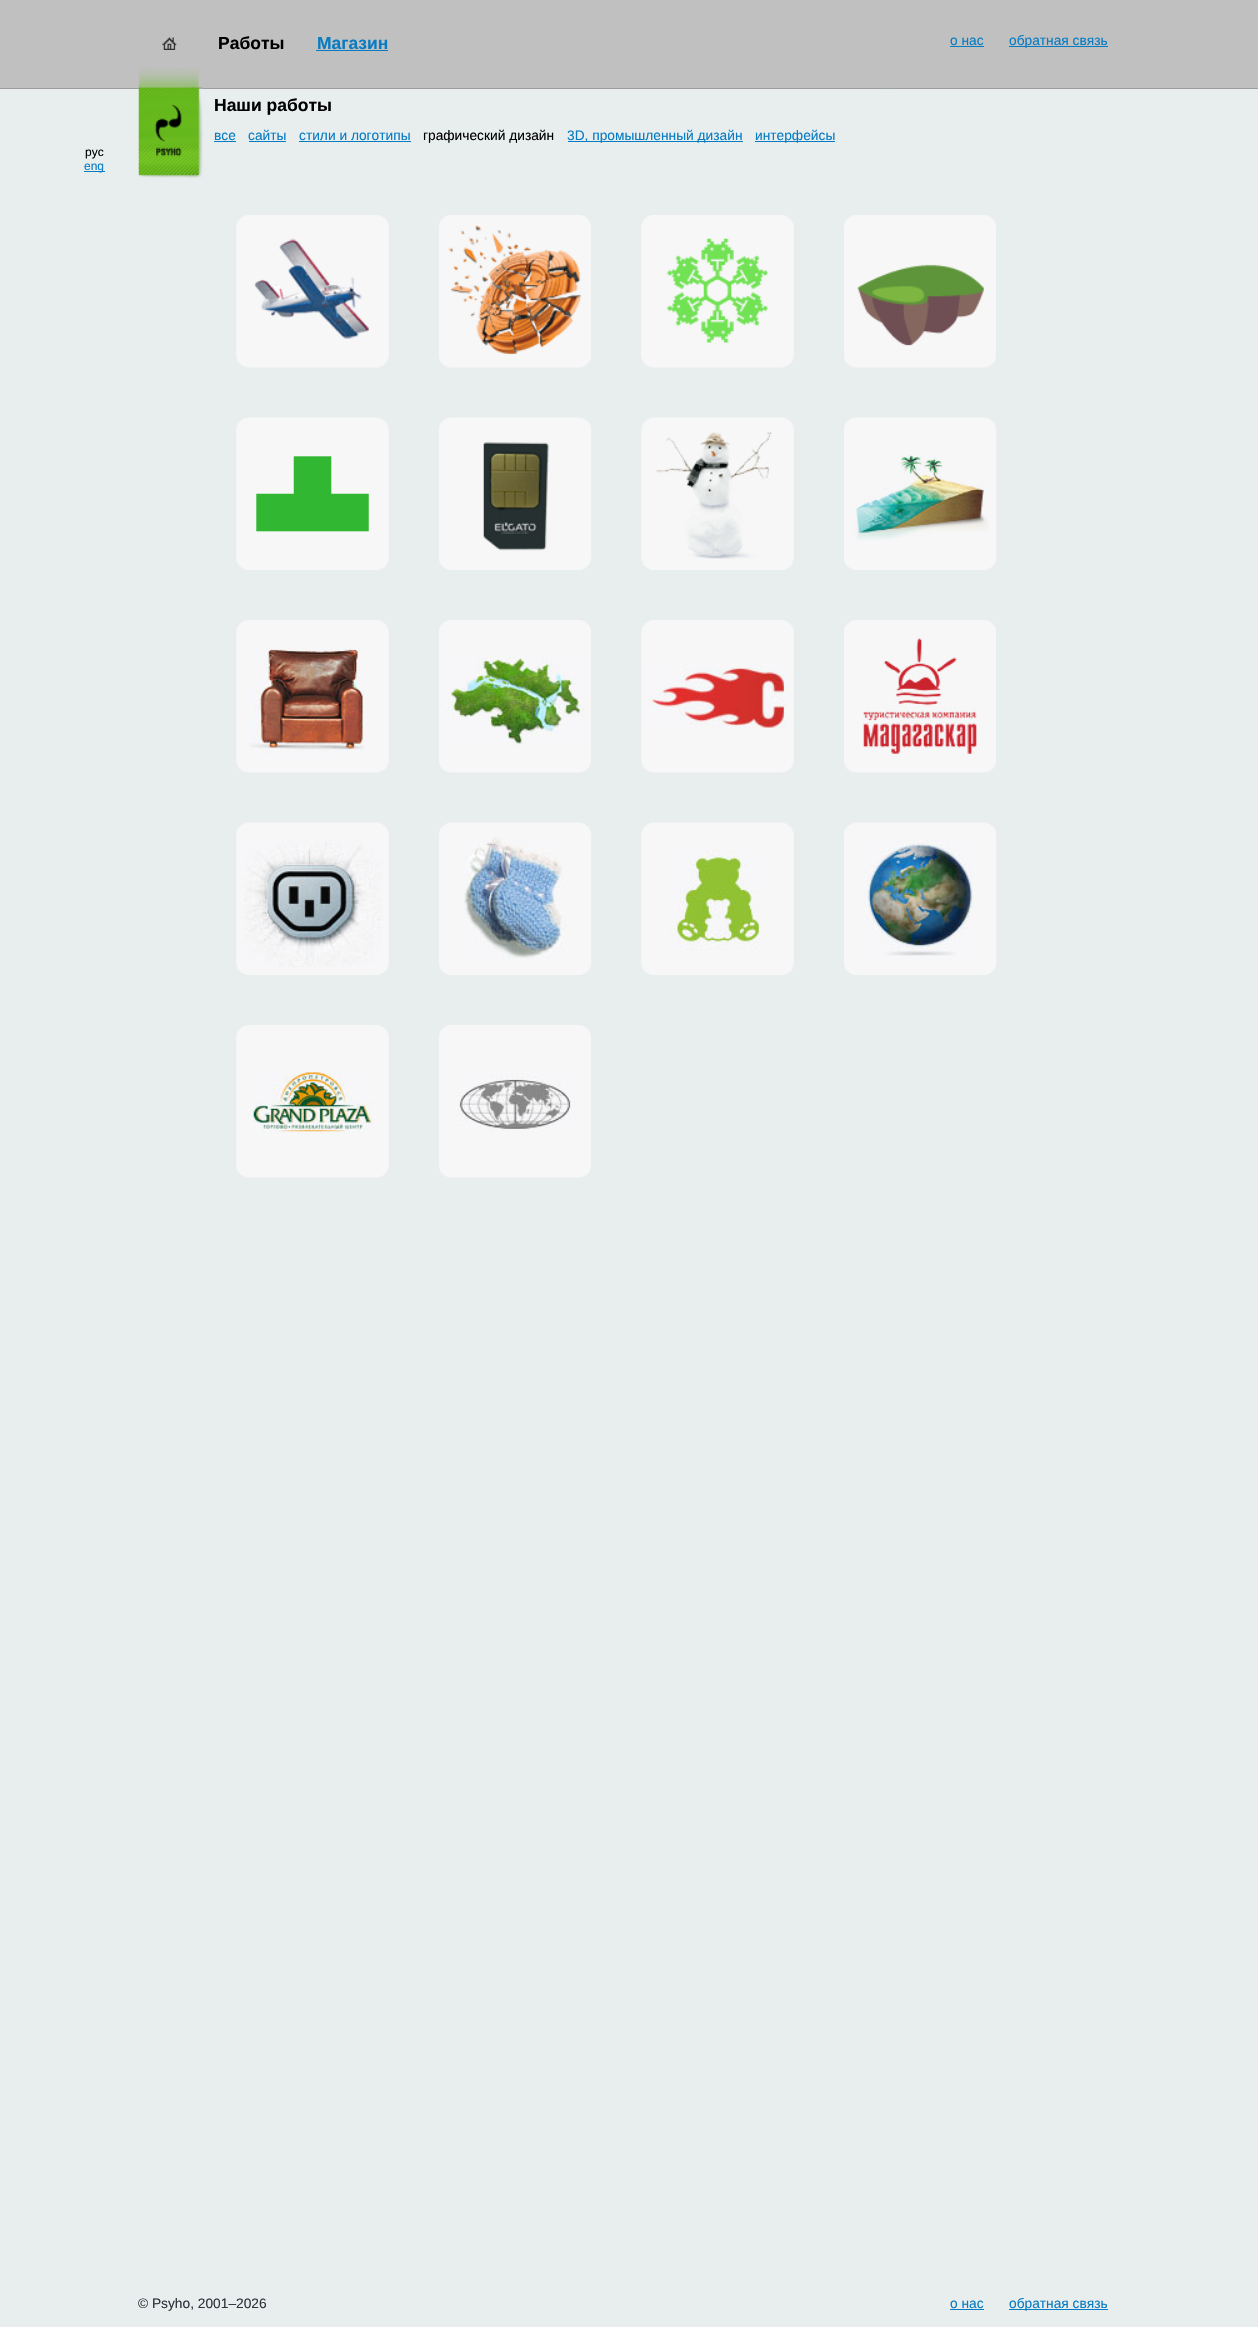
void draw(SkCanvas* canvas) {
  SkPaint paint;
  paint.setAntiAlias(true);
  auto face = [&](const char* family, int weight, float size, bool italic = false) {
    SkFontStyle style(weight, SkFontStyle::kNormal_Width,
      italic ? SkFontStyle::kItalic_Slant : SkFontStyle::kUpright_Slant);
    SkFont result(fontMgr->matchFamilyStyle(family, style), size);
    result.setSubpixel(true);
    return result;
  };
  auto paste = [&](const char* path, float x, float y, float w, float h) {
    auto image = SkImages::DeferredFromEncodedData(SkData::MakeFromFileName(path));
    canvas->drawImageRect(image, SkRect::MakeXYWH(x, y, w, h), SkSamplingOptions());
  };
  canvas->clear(0xffe8edee);
  paint.setColor(0xffc0c0c0);
  canvas->drawRect(SkRect::MakeXYWH(0, 0, 1258, 88), paint);
  paint.setColor(0xff9e9e9e);
  canvas->drawRect(SkRect::MakeXYWH(0, 88, 1258, 1), paint);
  paste("img/1.png", 162, 37, 15, 13);
  {
    const struct { float x, y, w, h; SkColor color; } items[] = {
      {316, 50, 72, 1, 0xff087cc2},
      {950, 46, 34, 1, 0xff087cc2},
      {1009, 46, 99, 1, 0xff087cc2},
      {84, 171, 21, 1, 0xff087cc2},
    };
    for (auto [x, y, w, h, color] : items) {
      paint.setColor(color);
      canvas->drawRect(SkRect::MakeXYWH(x, y, w, h), paint);
    }
  }
  paste("img/2.png", 138, 68, 65, 110);
  paste("img/3.png", 840, 89, 95, 1);
  {
    const struct { float x, y, w, h; SkColor color; } items[] = {
      {214, 141, 22, 1, 0xff087cc2},
      {249, 141, 37, 1, 0xff087cc2},
      {299, 141, 112, 1, 0xff087cc2},
      {568, 141, 175, 1, 0xff087cc2},
      {755, 141, 80, 1, 0xff087cc2},
    };
    for (auto [x, y, w, h, color] : items) {
      paint.setColor(color);
      canvas->drawRect(SkRect::MakeXYWH(x, y, w, h), paint);
    }
  }
  paste("img/4.png", 236, 215, 153, 153);
  paste("img/5.png", 254, 238, 115, 101);
  paste("img/6.png", 439, 215, 152, 153);
  paste("img/7.png", 448, 225, 134, 130);
  paste("img/8.png", 641, 215, 153, 153);
  paste("img/9.png", 666, 238, 103, 105);
  paste("img/10.png", 844, 215, 152, 153);
  paste("img/11.png", 857, 264, 127, 82);
  paste("img/12.png", 236, 417, 153, 153);
  paste("img/13.png", 256, 456, 113, 76);
  paste("img/14.png", 439, 417, 153, 153);
  paste("img/15.png", 483, 442, 66, 109);
  paste("img/16.png", 641, 417, 153, 153);
  paste("img/17.png", 656, 432, 116, 127);
  paste("img/18.png", 844, 417, 153, 153);
  paste("img/19.png", 851, 455, 138, 86);
  paste("img/4.png", 236, 620, 153, 153);
  paste("img/20.png", 250, 647, 114, 109);
  paste("img/6.png", 439, 620, 152, 153);
  paste("img/21.png", 446, 657, 138, 90);
  paste("img/8.png", 641, 620, 153, 153);
  paste("img/22.png", 648, 667, 139, 61);
  paste("img/10.png", 844, 620, 152, 153);
  paste("img/23.png", 861, 637, 120, 121);
  paste("img/12.png", 236, 822, 153, 153);
  paste("img/24.png", 244, 840, 137, 127);
  paste("img/14.png", 439, 822, 153, 153);
  paste("img/25.png", 464, 837, 102, 122);
  paste("img/16.png", 641, 822, 153, 153);
  paste("img/26.png", 669, 850, 90, 100);
  paste("img/18.png", 844, 822, 153, 153);
  paste("img/27.png", 861, 840, 112, 116);
  paste("img/28.png", 236, 1025, 153, 153);
  paste("img/29.png", 253, 1072, 121, 61);
  paste("img/30.png", 439, 1025, 152, 153);
  paste("img/31.png", 457, 1074, 118, 57);
  canvas->drawRect(SkRect::MakeXYWH(950, 2309, 34, 1), paint);
  canvas->drawRect(SkRect::MakeXYWH(1009, 2309, 99, 1), paint);
  auto f0 = face("Liberation Sans", 700, 17.5f);
  paint.setColor(0xff000000);
  canvas->drawString("Работы", 218, 49, f0, paint);
  paint.setColor(0xff087cc2);
  canvas->drawString("Магазин", 317, 49, f0, paint);
  auto f1 = face("Liberation Sans", 400, 13.75f);
  canvas->drawString("о нас", 950, 45, f1, paint);
  canvas->drawString("обратная связь", 1009, 45, f1, paint);
  auto f2 = face("Liberation Sans", 400, 12);
  paint.setColor(0xff000000);
  canvas->drawString("рус", 85, 156, f2, paint);
  paint.setColor(0xff087cc2);
  canvas->drawString("eng", 84, 170, f2, paint);
  paint.setColor(0xff000000);
  canvas->drawString("Наши работы", 214, 111, f0, paint);
  paint.setColor(0xff087cc2);
  {
    const struct { const char* s; float x, y; } items[] = {
      {"все", 214, 140},
      {"сайты", 248, 140},
      {"стили и логотипы", 299, 140},
    };
    for (auto [s, x, y] : items) {
      canvas->drawString(s, x, y, f1, paint);
    }
  }
  paint.setColor(0xff000000);
  canvas->drawString("графический дизайн", 423, 140, f1, paint);
  paint.setColor(0xff087cc2);
  canvas->drawString("3D, промышленный дизайн", 567, 140, f1, paint);
  canvas->drawString("интерфейсы", 755, 140, f1, paint);
  paint.setColor(0xff293339);
  canvas->drawString("© Psyho, 2001–2026", 138, 2308, f1, paint);
  paint.setColor(0xff087cc2);
  canvas->drawString("о нас", 950, 2308, f1, paint);
  canvas->drawString("обратная связь", 1009, 2308, f1, paint);
}
